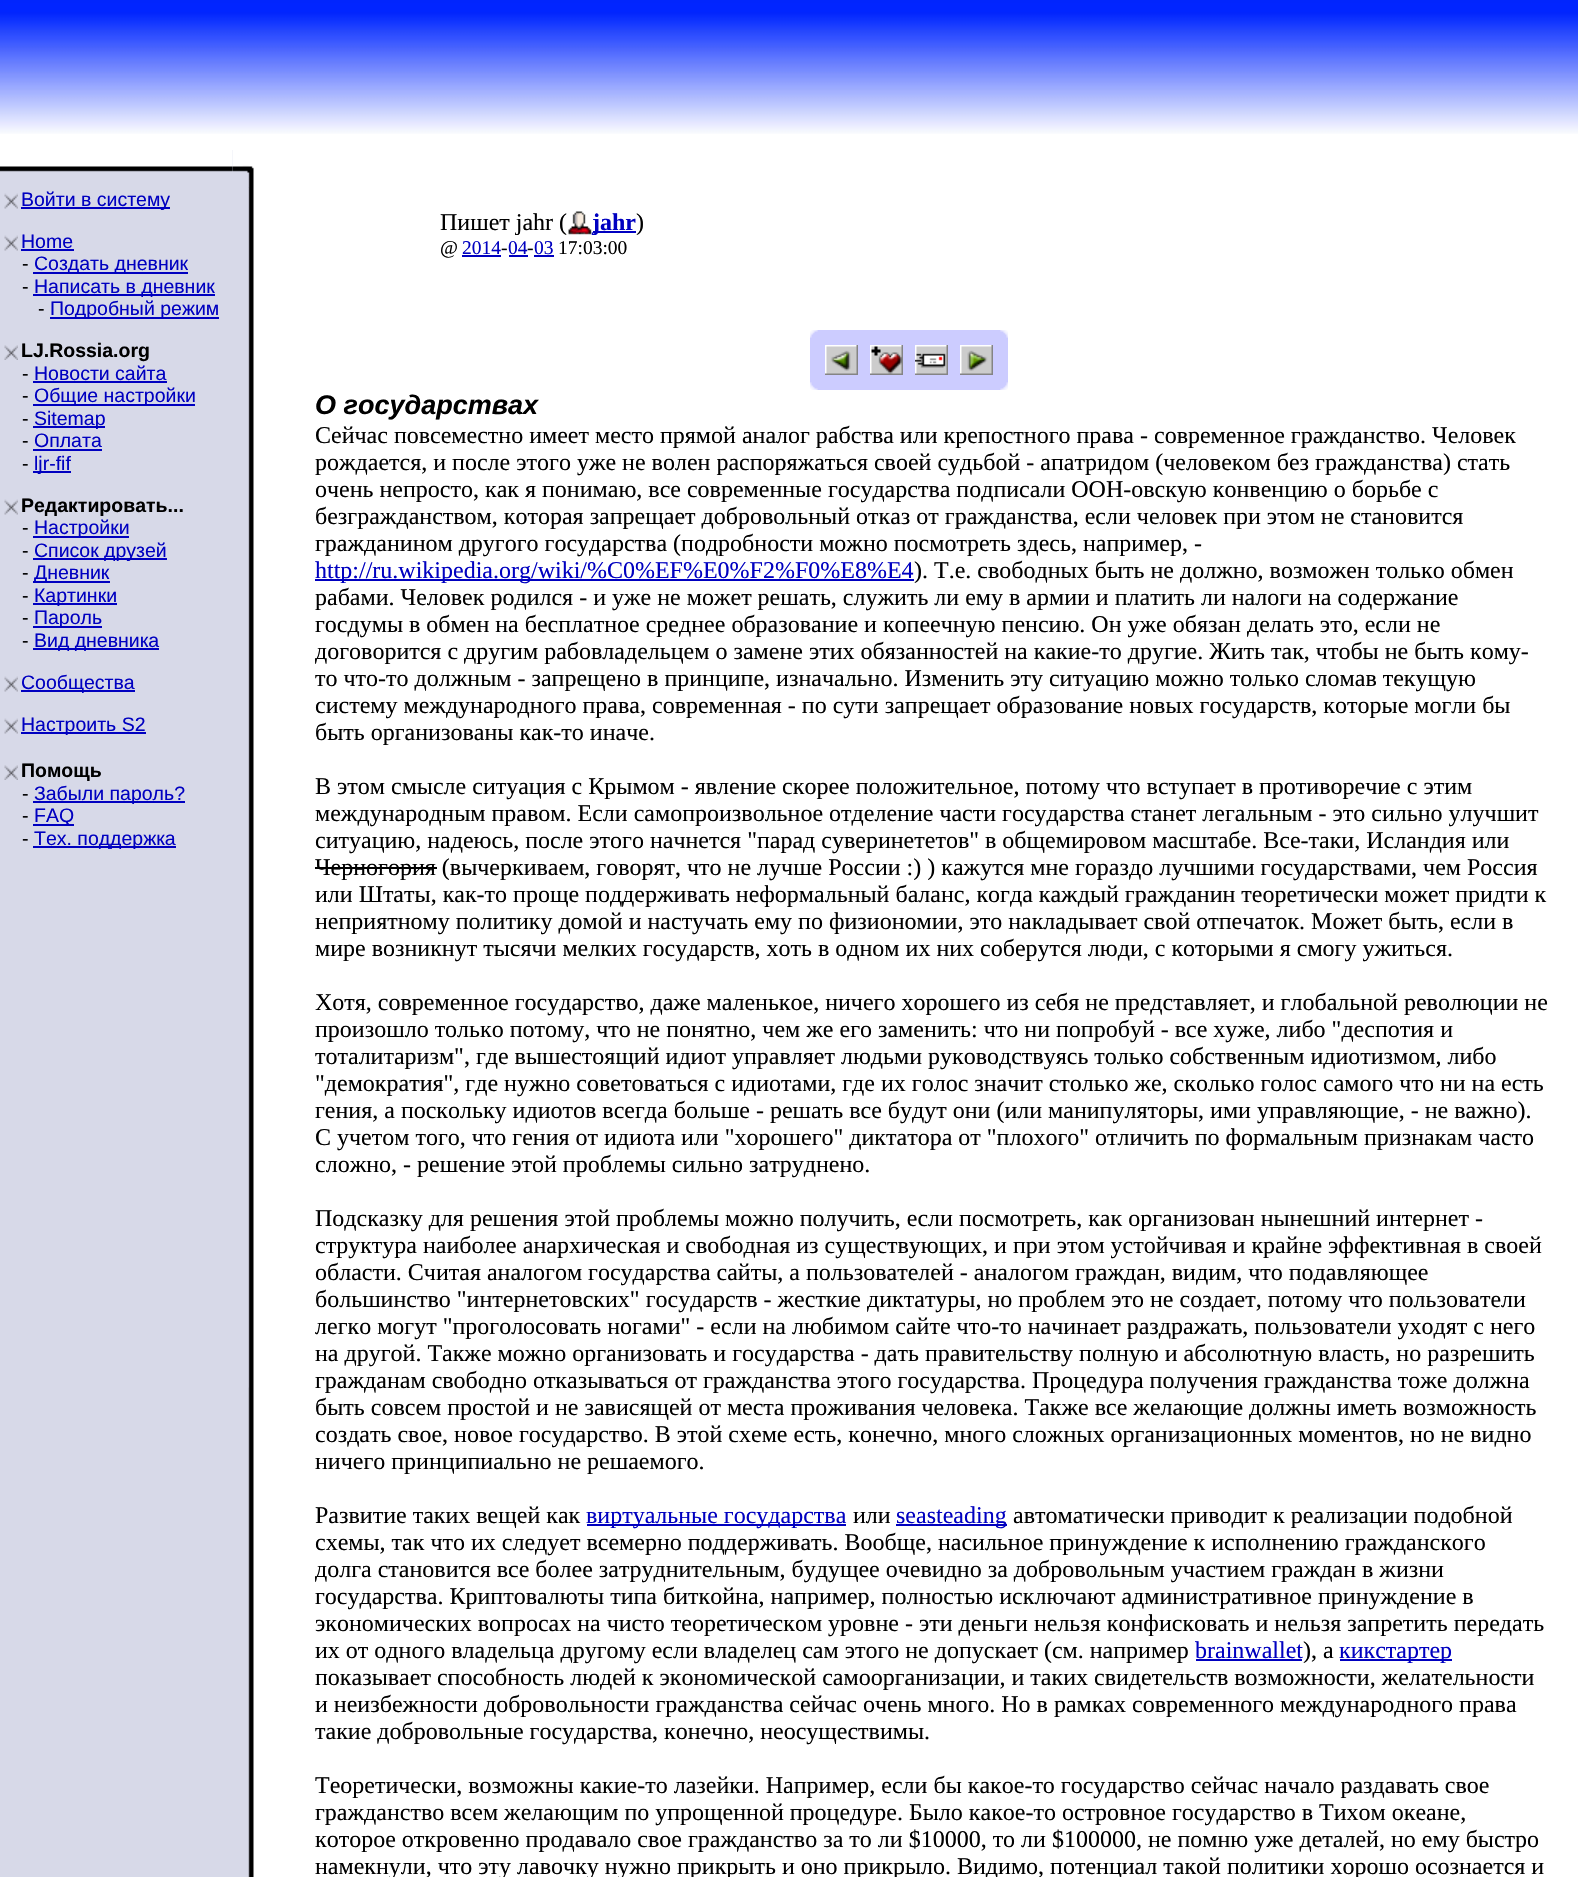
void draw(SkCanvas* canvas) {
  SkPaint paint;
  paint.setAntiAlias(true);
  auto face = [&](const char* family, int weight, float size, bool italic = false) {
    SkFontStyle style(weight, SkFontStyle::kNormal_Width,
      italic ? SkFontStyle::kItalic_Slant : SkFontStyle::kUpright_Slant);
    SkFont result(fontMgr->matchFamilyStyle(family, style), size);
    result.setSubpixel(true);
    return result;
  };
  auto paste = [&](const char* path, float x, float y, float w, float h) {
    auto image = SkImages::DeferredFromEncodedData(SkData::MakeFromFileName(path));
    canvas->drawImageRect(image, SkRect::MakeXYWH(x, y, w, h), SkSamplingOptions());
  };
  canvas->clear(0xffffffff);
  paste("img/1.png", 0, 0, 1578, 134);
  paint.setColor(0xffd7d9e8);
  canvas->drawRect(SkRect::MakeXYWH(0, 150, 233, 1727), paint);
  paste("img/2.png", 0, 150, 233, 22);
  paste("img/3.png", 4, 193, 14, 16);
  paint.setColor(0xff0000c0);
  canvas->drawRect(SkRect::MakeXYWH(21, 207, 149, 2), paint);
  paste("img/3.png", 4, 235, 14, 16);
  {
    const struct { float x, y, w, h; SkColor color; } items[] = {
      {21, 249, 53, 2, 0xff0000c0},
      {33, 272, 155, 2, 0xff0000c0},
      {33, 294, 182, 2, 0xff0000c0},
      {50, 317, 169, 2, 0xff0000c0},
    };
    for (auto [x, y, w, h, color] : items) {
      paint.setColor(color);
      canvas->drawRect(SkRect::MakeXYWH(x, y, w, h), paint);
    }
  }
  paste("img/4.png", 4, 345, 14, 15);
  {
    const struct { float x, y, w, h; SkColor color; } items[] = {
      {33, 381, 134, 2, 0xff0000c0},
      {33, 404, 162, 2, 0xff0000c0},
      {33, 426, 72, 2, 0xff0000c0},
      {33, 449, 69, 2, 0xff0000c0},
      {33, 471, 38, 2, 0xff0000c0},
    };
    for (auto [x, y, w, h, color] : items) {
      paint.setColor(color);
      canvas->drawRect(SkRect::MakeXYWH(x, y, w, h), paint);
    }
  }
  paste("img/3.png", 4, 499, 14, 16);
  {
    const struct { float x, y, w, h; SkColor color; } items[] = {
      {33, 536, 96, 2, 0xff0000c0},
      {33, 558, 134, 2, 0xff0000c0},
      {33, 581, 77, 2, 0xff0000c0},
      {33, 603, 84, 2, 0xff0000c0},
      {33, 626, 69, 2, 0xff0000c0},
      {33, 648, 126, 2, 0xff0000c0},
    };
    for (auto [x, y, w, h, color] : items) {
      paint.setColor(color);
      canvas->drawRect(SkRect::MakeXYWH(x, y, w, h), paint);
    }
  }
  paste("img/3.png", 4, 676, 14, 16);
  canvas->drawRect(SkRect::MakeXYWH(21, 690, 114, 2), paint);
  paste("img/3.png", 4, 718, 14, 16);
  canvas->drawRect(SkRect::MakeXYWH(21, 732, 125, 2), paint);
  paste("img/4.png", 4, 765, 14, 15);
  {
    const struct { float x, y, w, h; SkColor color; } items[] = {
      {33, 801, 152, 2, 0xff0000c0},
      {33, 824, 41, 2, 0xff0000c0},
      {33, 846, 143, 2, 0xff0000c0},
    };
    for (auto [x, y, w, h, color] : items) {
      paint.setColor(color);
      canvas->drawRect(SkRect::MakeXYWH(x, y, w, h), paint);
    }
  }
  paste("img/5.png", 233, 187, 21, 1690);
  paste("img/6.png", 232, 150, 22, 38);
  paste("img/7.png", 248, 188, 1, 1200);
  paste("img/8.png", 568, 211, 24, 24);
  {
    const struct { float x, y, w, h; SkColor color; } items[] = {
      {593, 231, 43, 2, 0xff0000c0},
      {462, 255, 39, 2, 0xff0000c0},
      {509, 255, 19, 2, 0xff0000c0},
      {534, 255, 20, 2, 0xff0000c0},
      {810, 330, 198, 60, 0xffccccff},
    };
    for (auto [x, y, w, h, color] : items) {
      paint.setColor(color);
      canvas->drawRect(SkRect::MakeXYWH(x, y, w, h), paint);
    }
  }
  paste("img/9.png", 810, 330, 8, 8);
  paste("img/10.png", 1000, 330, 8, 8);
  paste("img/11.png", 825, 345, 33, 30);
  paste("img/12.png", 870, 345, 33, 30);
  paste("img/13.png", 915, 345, 33, 30);
  paste("img/14.png", 960, 345, 33, 30);
  paste("img/15.png", 810, 382, 8, 8);
  paste("img/16.png", 1000, 382, 8, 8);
  {
    const struct { float x, y, w, h; SkColor color; } items[] = {
      {315, 579, 599, 2, 0xff0000c0},
      {315, 867, 122, 2, 0xff000000},
      {587, 1524, 259, 2, 0xff0000c0},
      {896, 1524, 111, 2, 0xff0000c0},
      {1196, 1659, 106, 2, 0xff0000c0},
      {1340, 1659, 112, 2, 0xff0000c0},
    };
    for (auto [x, y, w, h, color] : items) {
      paint.setColor(color);
      canvas->drawRect(SkRect::MakeXYWH(x, y, w, h), paint);
    }
  }
  auto f0 = face("Liberation Sans", 400, 19.5f);
  canvas->drawString("Войти в систему", 21, 206, f0, paint);
  canvas->drawString("Home", 21, 248, f0, paint);
  paint.setColor(0xff000000);
  canvas->drawString("-", 22, 270, f0, paint);
  paint.setColor(0xff0000c0);
  canvas->drawString("Создать дневник", 34, 270, f0, paint);
  paint.setColor(0xff000000);
  canvas->drawString("-", 22, 293, f0, paint);
  paint.setColor(0xff0000c0);
  canvas->drawString("Написать в дневник", 34, 293, f0, paint);
  paint.setColor(0xff000000);
  canvas->drawString("-", 38, 315, f0, paint);
  paint.setColor(0xff0000c0);
  canvas->drawString("Подробный режим", 50, 315, f0, paint);
  auto f1 = face("Liberation Sans", 700, 19.5f);
  paint.setColor(0xff000000);
  canvas->drawString("LJ.Rossia.org", 21, 357, f1, paint);
  canvas->drawString("-", 22, 380, f0, paint);
  paint.setColor(0xff0000c0);
  canvas->drawString("Новости сайта", 34, 380, f0, paint);
  paint.setColor(0xff000000);
  canvas->drawString("-", 22, 402, f0, paint);
  paint.setColor(0xff0000c0);
  canvas->drawString("Общие настройки", 34, 402, f0, paint);
  paint.setColor(0xff000000);
  canvas->drawString("-", 22, 425, f0, paint);
  paint.setColor(0xff0000c0);
  canvas->drawString("Sitemap", 34, 425, f0, paint);
  paint.setColor(0xff000000);
  canvas->drawString("-", 22, 447, f0, paint);
  paint.setColor(0xff0000c0);
  canvas->drawString("Оплата", 34, 447, f0, paint);
  paint.setColor(0xff000000);
  canvas->drawString("-", 22, 470, f0, paint);
  paint.setColor(0xff0000c0);
  canvas->drawString("ljr-fif", 34, 470, f0, paint);
  paint.setColor(0xff000000);
  canvas->drawString("Редактировать...", 21, 512, f1, paint);
  canvas->drawString("-", 22, 534, f0, paint);
  paint.setColor(0xff0000c0);
  canvas->drawString("Настройки", 34, 534, f0, paint);
  paint.setColor(0xff000000);
  canvas->drawString("-", 22, 557, f0, paint);
  paint.setColor(0xff0000c0);
  canvas->drawString("Список друзей", 34, 557, f0, paint);
  paint.setColor(0xff000000);
  canvas->drawString("-", 22, 579, f0, paint);
  paint.setColor(0xff0000c0);
  canvas->drawString("Дневник", 34, 579, f0, paint);
  paint.setColor(0xff000000);
  canvas->drawString("-", 22, 602, f0, paint);
  paint.setColor(0xff0000c0);
  canvas->drawString("Картинки", 34, 602, f0, paint);
  paint.setColor(0xff000000);
  canvas->drawString("-", 22, 624, f0, paint);
  paint.setColor(0xff0000c0);
  canvas->drawString("Пароль", 34, 624, f0, paint);
  paint.setColor(0xff000000);
  canvas->drawString("-", 22, 647, f0, paint);
  paint.setColor(0xff0000c0);
  {
    const struct { const char* s; float x, y; } items[] = {
      {"Вид дневника", 34, 647},
      {"Сообщества", 21, 689},
      {"Настроить S2", 21, 731},
    };
    for (auto [s, x, y] : items) {
      canvas->drawString(s, x, y, f0, paint);
    }
  }
  paint.setColor(0xff000000);
  canvas->drawString("Помощь", 21, 777, f1, paint);
  canvas->drawString("-", 22, 800, f0, paint);
  paint.setColor(0xff0000c0);
  canvas->drawString("Забыли пароль?", 34, 800, f0, paint);
  paint.setColor(0xff000000);
  canvas->drawString("-", 22, 822, f0, paint);
  paint.setColor(0xff0000c0);
  canvas->drawString("FAQ", 34, 822, f0, paint);
  paint.setColor(0xff000000);
  canvas->drawString("-", 22, 845, f0, paint);
  paint.setColor(0xff0000c0);
  canvas->drawString("Тех. поддержка", 34, 845, f0, paint);
  auto f2 = face("Liberation Serif", 400, 24);
  paint.setColor(0xff000000);
  canvas->drawString("Пишет jahr (", 440, 230, f2, paint);
  auto f3 = face("Liberation Serif", 700, 24);
  paint.setColor(0xff0000c0);
  canvas->drawString("jahr", 592, 230, f3, paint);
  paint.setColor(0xff000000);
  canvas->drawString(")", 636, 230, f2, paint);
  auto f4 = face("Liberation Serif", 400, 19.5f);
  canvas->drawString("@", 440, 254, f4, paint);
  paint.setColor(0xff0000c0);
  canvas->drawString("2014", 462, 254, f4, paint);
  paint.setColor(0xff000000);
  canvas->drawString("-", 501, 254, f4, paint);
  paint.setColor(0xff0000c0);
  canvas->drawString("04", 508, 254, f4, paint);
  paint.setColor(0xff000000);
  canvas->drawString("-", 527, 254, f4, paint);
  paint.setColor(0xff0000c0);
  canvas->drawString("03", 534, 254, f4, paint);
  paint.setColor(0xff000000);
  canvas->drawString("17:03:00", 558, 254, f4, paint);
  auto f5 = face("Liberation Sans", 700, 27, true);
  canvas->drawString("О государствах", 315, 414, f5, paint);
  {
    const struct { const char* s; float x, y; } items[] = {
      {"Сейчас повсеместно имеет место прямой аналог рабства или крепостного права - современное гражданство. Человек", 315, 443},
      {"рождается, и после этого уже не волен распоряжаться своей судьбой - апатридом (человеком без гражданства) стать", 315, 470},
      {"очень непросто, как я понимаю, все современные государства подписали ООН-овскую конвенцию о борьбе с", 315, 497},
      {"безгражданством, которая запрещает добровольный отказ от гражданства, если человек при этом не становится", 315, 524},
      {"гражданином другого государства (подробности можно посмотреть здесь, например, -", 315, 551},
    };
    for (auto [s, x, y] : items) {
      canvas->drawString(s, x, y, f2, paint);
    }
  }
  paint.setColor(0xff0000c0);
  canvas->drawString("http://ru.wikipedia.org/wiki/%C0%EF%E0%F2%F0%E8%E4", 315, 578, f2, paint);
  paint.setColor(0xff000000);
  {
    const struct { const char* s; float x, y; } items[] = {
      {"). Т.е. свободных быть не должно, возможен только обмен", 914, 578},
      {"рабами. Человек родился - и уже не может решать, служить ли ему в армии и платить ли налоги на содержание", 315, 605},
      {"госдумы в обмен на бесплатное среднее образование и копеечную пенсию. Он уже обязан делать это, если не", 315, 632},
      {"договорится с другим рабовладельцем о замене этих обязанностей на какие-то другие. Жить так, чтобы не быть кому-", 315, 659},
      {"то что-то должным - запрещено в принципе, изначально. Изменить эту ситуацию можно только сломав текущую", 315, 686},
      {"систему международного права, современная - по сути запрещает образование новых государств, которые могли бы", 315, 713},
      {"быть организованы как-то иначе.", 315, 740},
      {"В этом смысле ситуация с Крымом - явление скорее положительное, потому что вступает в противоречие с этим", 315, 794},
      {"международным правом. Если самопроизвольное отделение части государства станет легальным - это сильно улучшит", 315, 821},
      {"ситуацию, надеюсь, после этого начнется \"парад суверинететов\" в общемировом масштабе. Все-таки, Исландия или", 315, 848},
      {"Черногория (вычеркиваем, говорят, что не лучше России :) ) кажутся мне гораздо лучшими государствами, чем Россия", 315, 875},
      {"или Штаты, как-то проще поддерживать неформальный баланс, когда каждый гражданин теоретически может придти к", 315, 902},
      {"неприятному политику домой и настучать ему по физиономии, это накладывает свой отпечаток. Может быть, если в", 315, 929},
      {"мире возникнут тысячи мелких государств, хоть в одном их них соберутся люди, с которыми я смогу ужиться.", 315, 956},
      {"Хотя, современное государство, даже маленькое, ничего хорошего из себя не представляет, и глобальной революции не", 315, 1010},
      {"произошло только потому, что не понятно, чем же его заменить: что ни попробуй - все хуже, либо \"деспотия и", 315, 1037},
      {"тоталитаризм\", где вышестоящий идиот управляет людьми руководствуясь только собственным идиотизмом, либо", 315, 1064},
      {"\"демократия\", где нужно советоваться с идиотами, где их голос значит столько же, сколько голос самого что ни на есть", 315, 1091},
      {"гения, а поскольку идиотов всегда больше - решать все будут они (или манипуляторы, ими управляющие, - не важно).", 315, 1118},
      {"С учетом того, что гения от идиота или \"хорошего\" диктатора от \"плохого\" отличить по формальным признакам часто", 315, 1145},
      {"сложно, - решение этой проблемы сильно затруднено.", 315, 1172},
      {"Подсказку для решения этой проблемы можно получить, если посмотреть, как организован нынешний интернет -", 315, 1226},
      {"структура наиболее анархическая и свободная из существующих, и при этом устойчивая и крайне эффективная в своей", 315, 1253},
      {"области. Считая аналогом государства сайты, а пользователей - аналогом граждан, видим, что подавляющее", 315, 1280},
      {"большинство \"интернетовских\" государств - жесткие диктатуры, но проблем это не создает, потому что пользователи", 315, 1307},
      {"легко могут \"проголосовать ногами\" - если на любимом сайте что-то начинает раздражать, пользователи уходят с него", 315, 1334},
      {"на другой. Также можно организовать и государства - дать правительству полную и абсолютную власть, но разрешить", 315, 1361},
      {"гражданам свободно отказываться от гражданства этого государства. Процедура получения гражданства тоже должна", 315, 1388},
      {"быть совсем простой и не зависящей от места проживания человека. Также все желающие должны иметь возможность", 315, 1415},
      {"создать свое, новое государство. В этой схеме есть, конечно, много сложных организационных моментов, но не видно", 315, 1442},
      {"ничего принципиально не решаемого.", 315, 1469},
      {"Развитие таких вещей как", 315, 1523},
    };
    for (auto [s, x, y] : items) {
      canvas->drawString(s, x, y, f2, paint);
    }
  }
  paint.setColor(0xff0000c0);
  canvas->drawString("виртуальные государства", 586, 1523, f2, paint);
  paint.setColor(0xff000000);
  canvas->drawString("или", 853, 1523, f2, paint);
  paint.setColor(0xff0000c0);
  canvas->drawString("seasteading", 896, 1523, f2, paint);
  paint.setColor(0xff000000);
  {
    const struct { const char* s; float x, y; } items[] = {
      {"автоматически приводит к реализации подобной", 1013, 1523},
      {"схемы, так что их следует всемерно поддерживать. Вообще, насильное принуждение к исполнению гражданского", 315, 1550},
      {"долга становится все более затруднительным, будущее очевидно за добровольным участием граждан в жизни", 315, 1577},
      {"государства. Криптовалюты типа биткойна, например, полностью исключают административное принуждение в", 315, 1604},
      {"экономических вопросах на чисто теоретическом уровне - эти деньги нельзя конфисковать и нельзя запретить передать", 315, 1631},
      {"их от одного владельца другому если владелец сам этого не допускает (см. например", 315, 1658},
    };
    for (auto [s, x, y] : items) {
      canvas->drawString(s, x, y, f2, paint);
    }
  }
  paint.setColor(0xff0000c0);
  canvas->drawString("brainwallet", 1195, 1658, f2, paint);
  paint.setColor(0xff000000);
  canvas->drawString("), а", 1303, 1658, f2, paint);
  paint.setColor(0xff0000c0);
  canvas->drawString("кикстартер", 1339, 1658, f2, paint);
  paint.setColor(0xff000000);
  {
    const struct { const char* s; float x, y; } items[] = {
      {"показывает способность людей к экономической самоорганизации, и таких свидетельств возможности, желательности", 315, 1685},
      {"и неизбежности добровольности гражданства сейчас очень много. Но в рамках современного международного права", 315, 1712},
      {"такие добровольные государства, конечно, неосуществимы.", 315, 1739},
      {"Теоретически, возможны какие-то лазейки. Например, если бы какое-то государство сейчас начало раздавать свое", 315, 1793},
      {"гражданство всем желающим по упрощенной процедуре. Было какое-то островное государство в Тихом океане,", 315, 1820},
      {"которое откровенно продавало свое гражданство за то ли $10000, то ли $100000, не помню уже деталей, но ему быстро", 315, 1847},
      {"намекнули, что эту лавочку нужно прикрыть и оно прикрыло. Видимо, потенциал такой политики хорошо осознается и", 315, 1874},
    };
    for (auto [s, x, y] : items) {
      canvas->drawString(s, x, y, f2, paint);
    }
  }
}
